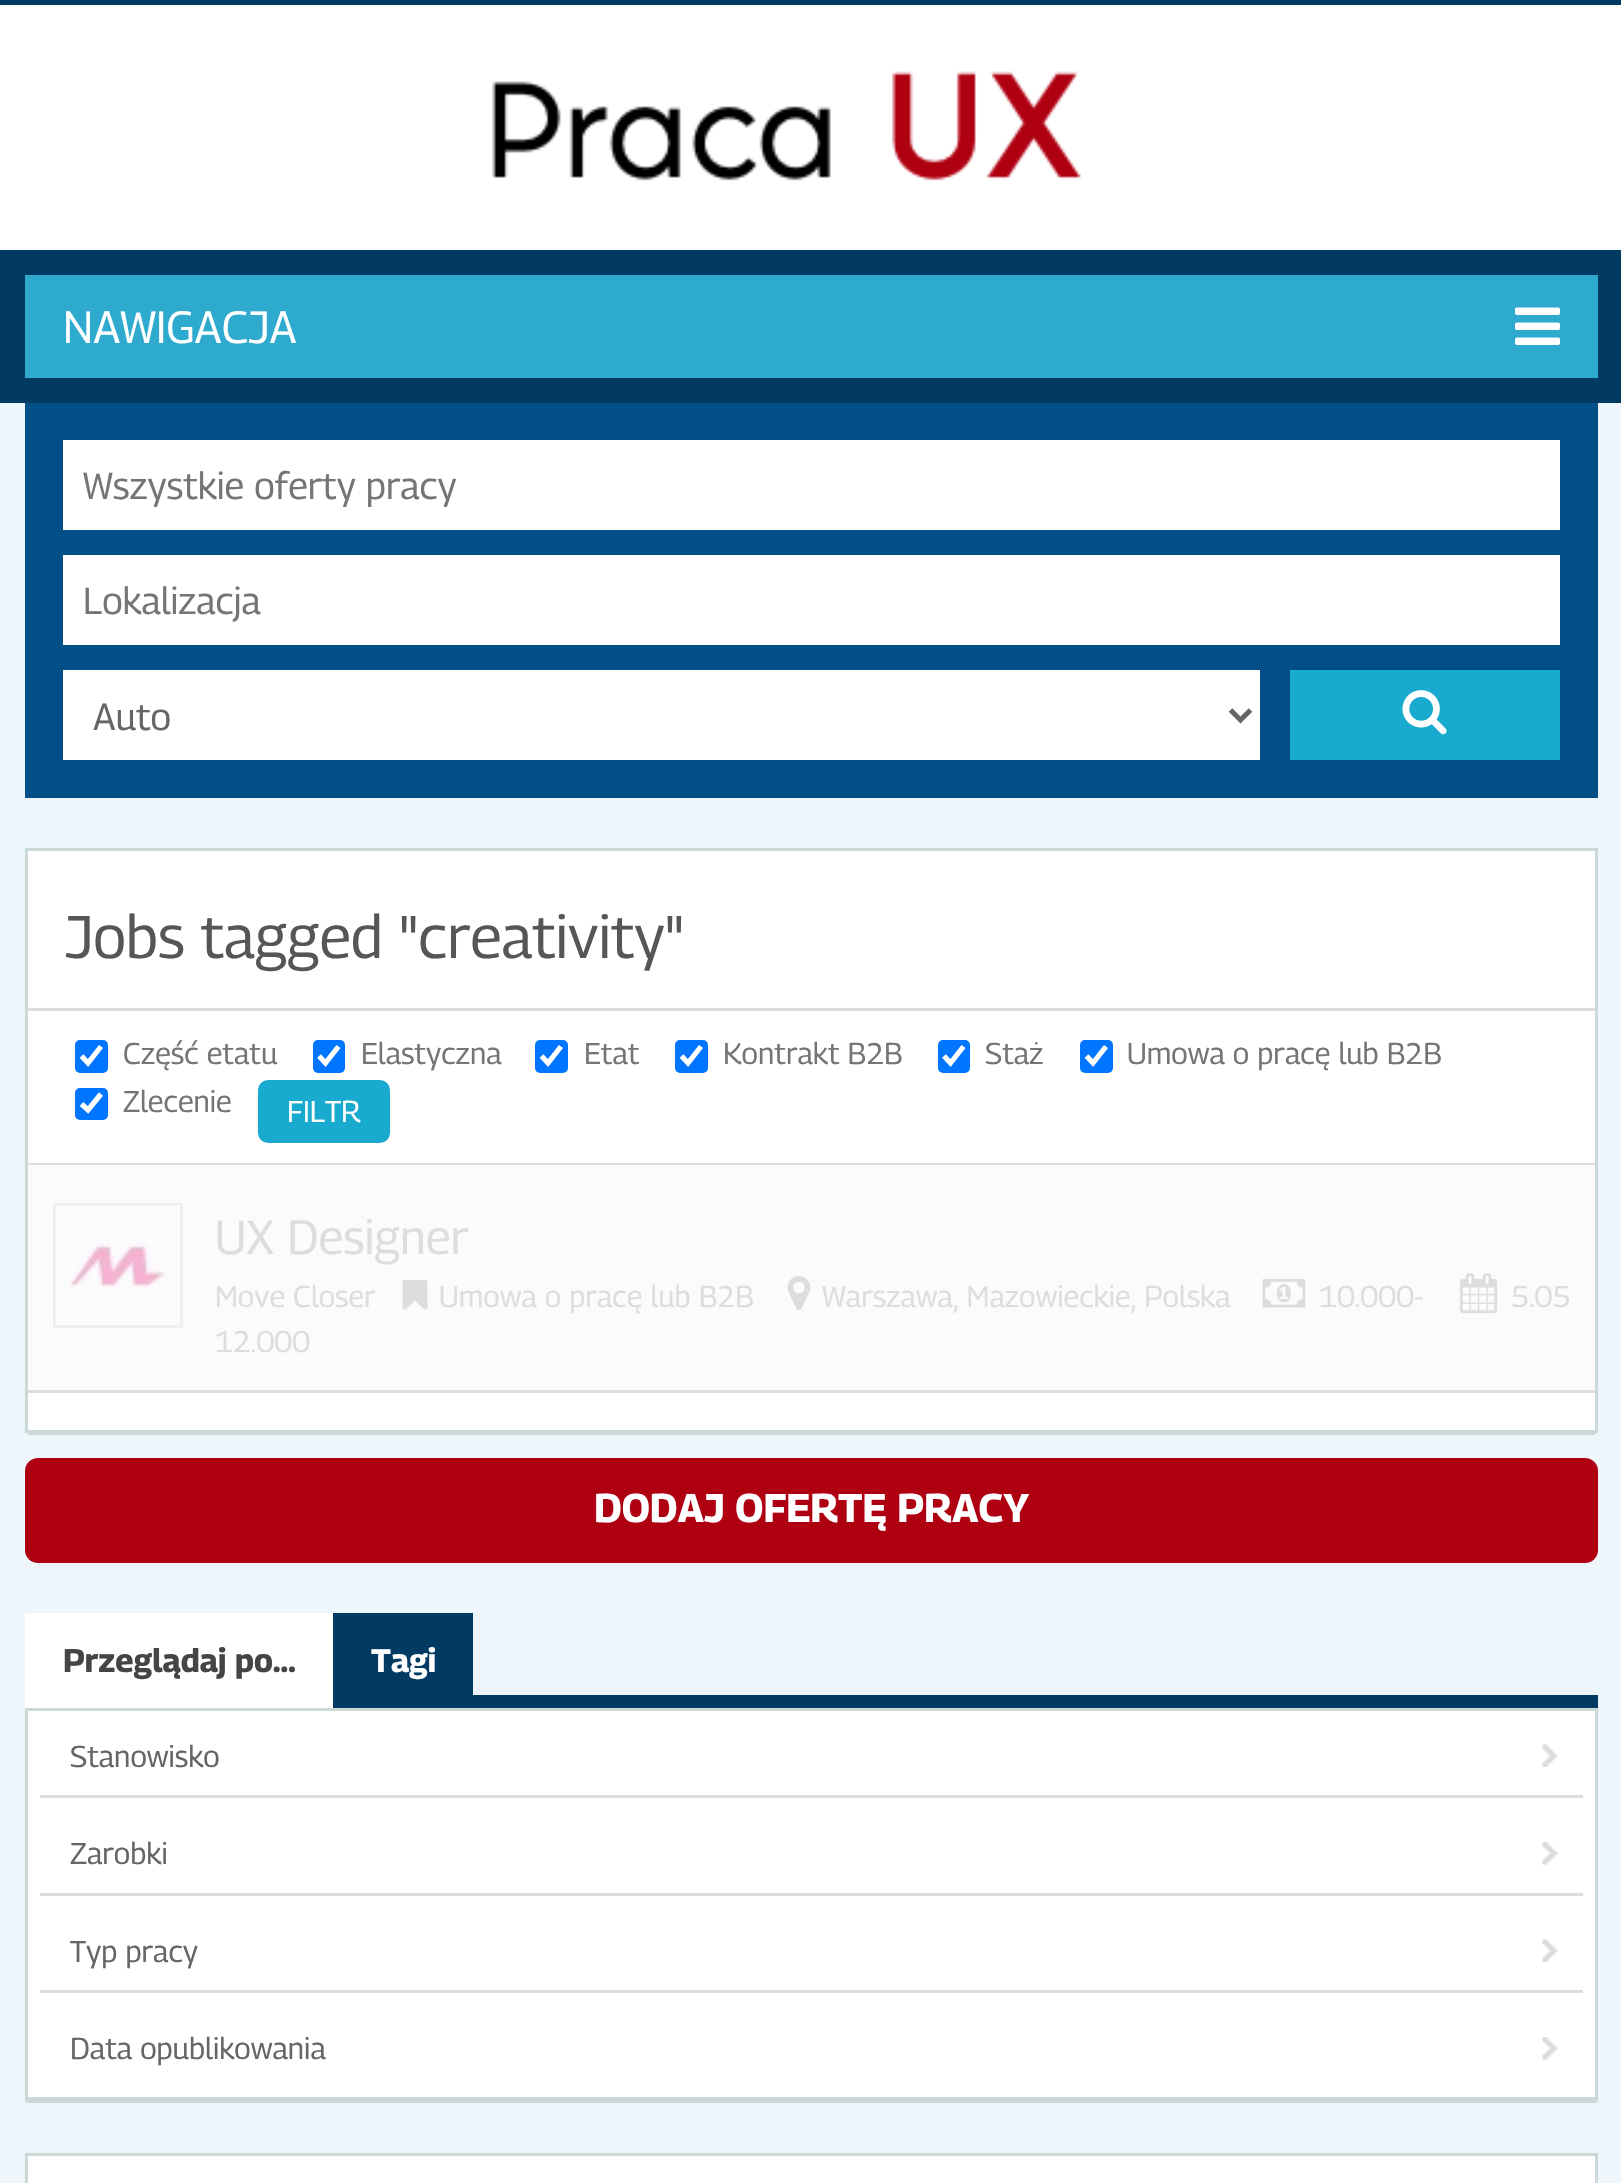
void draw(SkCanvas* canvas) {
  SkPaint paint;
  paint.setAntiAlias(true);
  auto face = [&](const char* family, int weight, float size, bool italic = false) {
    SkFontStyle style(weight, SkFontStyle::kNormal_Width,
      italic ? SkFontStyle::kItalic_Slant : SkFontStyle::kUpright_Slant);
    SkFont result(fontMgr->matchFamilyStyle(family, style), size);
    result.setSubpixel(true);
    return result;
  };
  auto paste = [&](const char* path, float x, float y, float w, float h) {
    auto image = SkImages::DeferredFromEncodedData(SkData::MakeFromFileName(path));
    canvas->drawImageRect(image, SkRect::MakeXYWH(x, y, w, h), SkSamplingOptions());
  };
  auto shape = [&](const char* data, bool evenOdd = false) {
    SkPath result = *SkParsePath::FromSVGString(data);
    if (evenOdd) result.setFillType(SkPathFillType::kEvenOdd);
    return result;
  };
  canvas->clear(0xffeff6fb);
  paint.setColor(0xff013a63);
  canvas->drawRect(SkRect::MakeXYWH(0, 0, 1621, 5), paint);
  paint.setColor(0xffffffff);
  canvas->drawRect(SkRect::MakeXYWH(0, 5, 1621, 245), paint);
  paste("img/1.png", 492, 71, 589, 110);
  paint.setColor(0xff013a63);
  canvas->drawRect(SkRect::MakeXYWH(0, 250, 1621, 153), paint);
  paint.setColor(0xff2daacd);
  canvas->drawRect(SkRect::MakeXYWH(25, 275, 1573, 103), paint);
  paste("img/2.png", 1515, 307, 45, 38);
  {
    const struct { float x, y, w, h; SkColor color; } items[] = {
      {25, 403, 1573, 395, 0xff014f86},
      {63, 440, 1497, 90, 0xffffffff},
      {63, 555, 1497, 90, 0xffffffff},
      {63, 670, 1197, 90, 0xffffffff},
    };
    for (auto [x, y, w, h, color] : items) {
      paint.setColor(color);
      canvas->drawRect(SkRect::MakeXYWH(x, y, w, h), paint);
    }
  }
  paint.setStroke(true);
  paint.setStrokeWidth(5);
  paint.setColor(0xff666666);
  canvas->drawPath(shape("M1230.5 710L1240.5 720L1250.5 710"), paint);
  paint.setStroke(false);
  paint.setColor(0xff19aacf);
  canvas->drawRect(SkRect::MakeXYWH(1290, 670, 270, 90), paint);
  paste("img/3.png", 1402, 690, 45, 45);
  paint.setColor(0xffcbd8d8);
  canvas->drawRect(SkRect::MakeXYWH(28, 1433, 1567, 2), paint);
  paint.setColor(0xffffffff);
  canvas->drawRect(SkRect::MakeXYWH(26.5f, 849.5f, 1570, 582), paint);
  paint.setStroke(true);
  paint.setStrokeWidth(3);
  paint.setColor(0xffcbd8d8);
  canvas->drawRect(SkRect::MakeXYWH(26.5f, 849.5f, 1570, 582), paint);
  paint.setStroke(false);
  paint.setColor(0xffdddddd);
  canvas->drawRect(SkRect::MakeXYWH(28, 1008, 1567, 3), paint);
  paint.setColor(0xff0075ff);
  canvas->drawRoundRect(SkRect::MakeXYWH(75, 1040, 33, 33), 5, 5, paint);
  paint.setStroke(true);
  paint.setStrokeWidth(5.2f);
  paint.setColor(0xffffffff);
  canvas->drawPath(shape("M81.5 1056L88 1063L101 1046.5"), paint);
  paint.setStroke(false);
  paint.setColor(0xff0075ff);
  canvas->drawRoundRect(SkRect::MakeXYWH(313, 1040, 32, 33), 5, 5, paint);
  paint.setStroke(true);
  paint.setColor(0xffffffff);
  canvas->drawPath(shape("M319 1056L325.5 1063L338.5 1046.5"), paint);
  paint.setStroke(false);
  paint.setColor(0xff0075ff);
  canvas->drawRoundRect(SkRect::MakeXYWH(535, 1040, 33, 33), 5, 5, paint);
  paint.setStroke(true);
  paint.setColor(0xffffffff);
  canvas->drawPath(shape("M541.5 1056L548 1063L561 1046.5"), paint);
  paint.setStroke(false);
  paint.setColor(0xff0075ff);
  canvas->drawRoundRect(SkRect::MakeXYWH(675, 1040, 33, 33), 5, 5, paint);
  paint.setStroke(true);
  paint.setColor(0xffffffff);
  canvas->drawPath(shape("M681.5 1056L688 1063L701 1046.5"), paint);
  paint.setStroke(false);
  paint.setColor(0xff0075ff);
  canvas->drawRoundRect(SkRect::MakeXYWH(938, 1040, 32, 33), 5, 5, paint);
  paint.setStroke(true);
  paint.setColor(0xffffffff);
  canvas->drawPath(shape("M944 1056L950.5 1063L963.5 1046.5"), paint);
  paint.setStroke(false);
  paint.setColor(0xff0075ff);
  canvas->drawRoundRect(SkRect::MakeXYWH(1080, 1040, 33, 33), 5, 5, paint);
  paint.setStroke(true);
  paint.setColor(0xffffffff);
  canvas->drawPath(shape("M1086.5 1056L1093 1063L1106 1046.5"), paint);
  paint.setStroke(false);
  paint.setColor(0xff0075ff);
  canvas->drawRoundRect(SkRect::MakeXYWH(75, 1088, 33, 32), 5, 5, paint);
  paint.setStroke(true);
  paint.setColor(0xffffffff);
  canvas->drawPath(shape("M81.5 1104L88 1110L101 1094"), paint);
  paint.setStroke(false);
  paint.setColor(0xff19aacf);
  canvas->drawRoundRect(SkRect::MakeXYWH(258, 1080, 132, 63), 10, 10, paint);
  {
    const struct { float x, y, w, h; SkColor color; } items[] = {
      {28, 1163, 1567, 2, 0xffdddddd},
      {28, 1165, 1567, 225, 0xfffbfbfb},
      {28, 1390, 1567, 3, 0xffdddddd},
    };
    for (auto [x, y, w, h, color] : items) {
      paint.setColor(color);
      canvas->drawRect(SkRect::MakeXYWH(x, y, w, h), paint);
    }
  }
  paint.setStroke(true);
  paint.setStrokeWidth(3);
  paint.setColor(0xffefefef);
  canvas->drawRect(SkRect::MakeXYWH(54.5f, 1204.5f, 127, 122), paint);
  paste("img/4.png", 55, 1205, 125, 119);
  paste("img/5.png", 402, 1280, 26, 30);
  paste("img/6.png", 787, 1276, 24, 35);
  paste("img/7.png", 1262, 1279, 44, 29);
  paste("img/8.png", 1460, 1273, 38, 41);
  paint.setStroke(false);
  paint.setColor(0xffaf0012);
  canvas->drawRoundRect(SkRect::MakeXYWH(25, 1458, 1573, 105), 13, 13, paint);
  {
    const struct { float x, y, w, h; SkColor color; } items[] = {
      {25, 2100, 1573, 3, 0xffdddddd},
      {473, 1695, 1125, 13, 0xff013a63},
      {25, 1613, 308, 95, 0xffffffff},
      {333, 1613, 140, 95, 0xff013a63},
      {28, 2100, 1567, 3, 0xffcbd8d8},
    };
    for (auto [x, y, w, h, color] : items) {
      paint.setColor(color);
      canvas->drawRect(SkRect::MakeXYWH(x, y, w, h), paint);
    }
  }
  paint.setColor(0xffffffff);
  canvas->drawRect(SkRect::MakeXYWH(26.5f, 1709.5f, 1570, 389), paint);
  paint.setStroke(true);
  paint.setColor(0xffcbd8d8);
  canvas->drawRect(SkRect::MakeXYWH(26.5f, 1709.5f, 1570, 389), paint);
  paste("img/9.png", 1542, 1744, 16, 23);
  paint.setStroke(false);
  paint.setColor(0xffdddddd);
  canvas->drawRect(SkRect::MakeXYWH(40, 1795, 1543, 3), paint);
  paste("img/10.png", 1542, 1842, 16, 23);
  canvas->drawRect(SkRect::MakeXYWH(40, 1893, 1543, 3), paint);
  paste("img/9.png", 1542, 1939, 16, 23);
  canvas->drawRect(SkRect::MakeXYWH(40, 1990, 1543, 3), paint);
  paste("img/10.png", 1542, 2037, 16, 23);
  paint.setColor(0xffffffff);
  canvas->drawRect(SkRect::MakeXYWH(26.5f, 2154.5f, 1570, 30), paint);
  paint.setStroke(true);
  paint.setColor(0xffcbd8d8);
  canvas->drawRect(SkRect::MakeXYWH(26.5f, 2154.5f, 1570, 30), paint);
  auto f0 = face("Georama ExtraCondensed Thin", 400, 45);
  paint.setStroke(false);
  paint.setColor(0xffffffff);
  canvas->drawString("NAWIGACJA", 63, 343, f0, paint);
  auto f1 = face("Georama ExtraCondensed Thin", 400, 37.5f);
  paint.setColor(0xff757575);
  canvas->drawString("Wszystkie oferty pracy", 83, 499, f1, paint);
  canvas->drawString("Lokalizacja", 83, 614, f1, paint);
  paint.setColor(0xff666666);
  canvas->drawString("Auto", 93, 730, f1, paint);
  auto f2 = face("Georama ExtraCondensed Thin", 400, 60);
  paint.setColor(0xff555655);
  canvas->drawString("Jobs tagged \"creativity\"", 65, 958, f2, paint);
  auto f3 = face("Georama ExtraCondensed Thin", 400, 30);
  paint.setColor(0xff757575);
  {
    const struct { const char* s; float x, y; } items[] = {
      {"Część etatu", 123, 1064},
      {"Elastyczna", 361, 1064},
      {"Etat", 584, 1064},
      {"Kontrakt B2B", 723, 1064},
      {"Staż", 985, 1064},
      {"Umowa o pracę lub B2B", 1127, 1064},
      {"Zlecenie", 123, 1112},
    };
    for (auto [s, x, y] : items) {
      canvas->drawString(s, x, y, f3, paint);
    }
  }
  paint.setColor(0xffffffff);
  canvas->drawString("FILTR", 287, 1122, f3, paint);
  auto f4 = face("Georama ExtraCondensed Thin", 400, 47.5f);
  paint.setColor(0xffdddddd);
  canvas->drawString("UX Designer", 215, 1254, f4, paint);
  {
    const struct { const char* s; float x, y; } items[] = {
      {"Move Closer", 215, 1307},
      {"Umowa o pracę lub B2B", 439, 1307},
      {"Warszawa, Mazowieckie, Polska", 822, 1307},
      {"10.000-", 1319, 1307},
      {"12.000", 215, 1352},
      {"5.05", 1511, 1307},
    };
    for (auto [s, x, y] : items) {
      canvas->drawString(s, x, y, f3, paint);
    }
  }
  auto f5 = face("Georama ExtraCondensed Thin", 700, 40);
  paint.setColor(0xffffffff);
  canvas->drawString("DODAJ OFERTĘ PRACY", 594, 1522, f5, paint);
  auto f6 = face("Georama ExtraCondensed Thin", 700, 32.5f);
  paint.setColor(0xff454545);
  canvas->drawString("Przeglądaj po…", 63, 1672, f6, paint);
  paint.setColor(0xffffffff);
  canvas->drawString("Tagi", 371, 1672, f6, paint);
  paint.setColor(0xff666666);
  {
    const struct { const char* s; float x, y; } items[] = {
      {"Stanowisko", 70, 1767},
      {"Zarobki", 70, 1864},
      {"Typ pracy", 70, 1962},
      {"Data opublikowania", 70, 2059},
    };
    for (auto [s, x, y] : items) {
      canvas->drawString(s, x, y, f3, paint);
    }
  }
}
